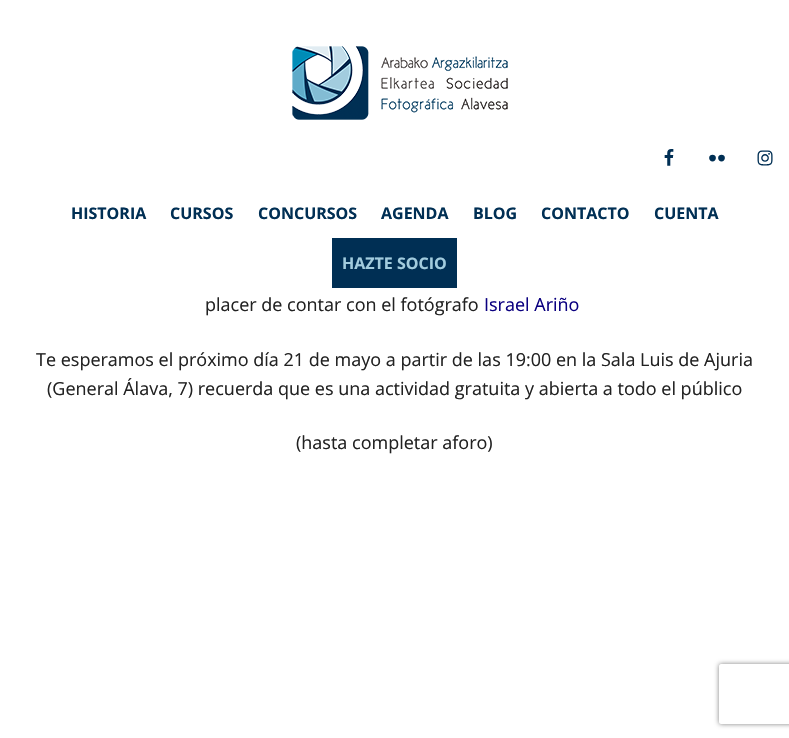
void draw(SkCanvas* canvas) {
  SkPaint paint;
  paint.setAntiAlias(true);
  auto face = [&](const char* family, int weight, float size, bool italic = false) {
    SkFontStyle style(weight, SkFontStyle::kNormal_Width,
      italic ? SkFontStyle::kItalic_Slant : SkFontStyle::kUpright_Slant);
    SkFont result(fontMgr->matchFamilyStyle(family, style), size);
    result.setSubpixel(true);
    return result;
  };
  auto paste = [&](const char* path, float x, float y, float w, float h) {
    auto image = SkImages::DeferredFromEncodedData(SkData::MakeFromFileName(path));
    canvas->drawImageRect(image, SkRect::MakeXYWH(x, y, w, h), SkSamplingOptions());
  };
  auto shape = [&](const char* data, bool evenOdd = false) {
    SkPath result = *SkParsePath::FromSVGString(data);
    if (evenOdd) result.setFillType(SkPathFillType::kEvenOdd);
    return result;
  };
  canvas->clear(0xffffffff);
  paste("img/1.png", 292, 46, 216, 74);
  paste("img/2.png", 664, 149, 10, 17);
  paste("img/3.png", 709, 154, 16, 8);
  paste("img/4.png", 757, 150, 16, 16);
  paint.setColor(0xff002f54);
  canvas->drawRect(SkRect::MakeXYWH(332, 238, 125, 50), paint);
  canvas->save();
  canvas->clipPath(shape("M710 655H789V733H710ZM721 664H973C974 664 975 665 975 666V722C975 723 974 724 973 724H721C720 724 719 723 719 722V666C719 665 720 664 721 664Z", true), true);
  paint.setColor(0xff808080);
  paint.setMaskFilter(SkMaskFilter::MakeBlur(kNormal_SkBlurStyle, 2.5f));
  canvas->drawRoundRect(SkRect::MakeXYWH(719, 664, 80, 60), 2, 2, paint);
  paint.setMaskFilter(nullptr);
  canvas->restore();
  auto f0 = face("Open Sans", 700, 16);
  paint.setColor(0xff002f54);
  {
    const struct { const char* s; float x, y; } items[] = {
      {"HISTORIA", 71, 219},
      {"CURSOS", 170, 219},
      {"CONCURSOS", 258, 219},
      {"AGENDA", 381, 219},
      {"BLOG", 473, 219},
      {"CONTACTO", 541, 219},
      {"CUENTA", 654, 219},
    };
    for (auto [s, x, y] : items) {
      canvas->drawString(s, x, y, f0, paint);
    }
  }
  paint.setColor(0xffa2ccde);
  canvas->drawString("HAZTE SOCIO", 342, 269, f0, paint);
  auto f1 = face("Open Sans", 400, 18);
  paint.setColor(0xff222222);
  canvas->drawString("placer de contar con el fotógrafo", 205, 311, f1, paint);
  paint.setColor(0xff0b0080);
  canvas->drawString("Israel Ariño", 484, 311, f1, paint);
  paint.setColor(0xff222222);
  {
    const struct { const char* s; float x, y; } items[] = {
      {"Te esperamos el próximo día 21 de mayo a partir de las 19:00 en la Sala Luis de Ajuria", 36, 366},
      {"(General Álava, 7) recuerda que es una actividad gratuita y abierta a todo el público", 47, 395},
      {"(hasta completar aforo)", 296, 449},
    };
    for (auto [s, x, y] : items) {
      canvas->drawString(s, x, y, f1, paint);
    }
  }
}
